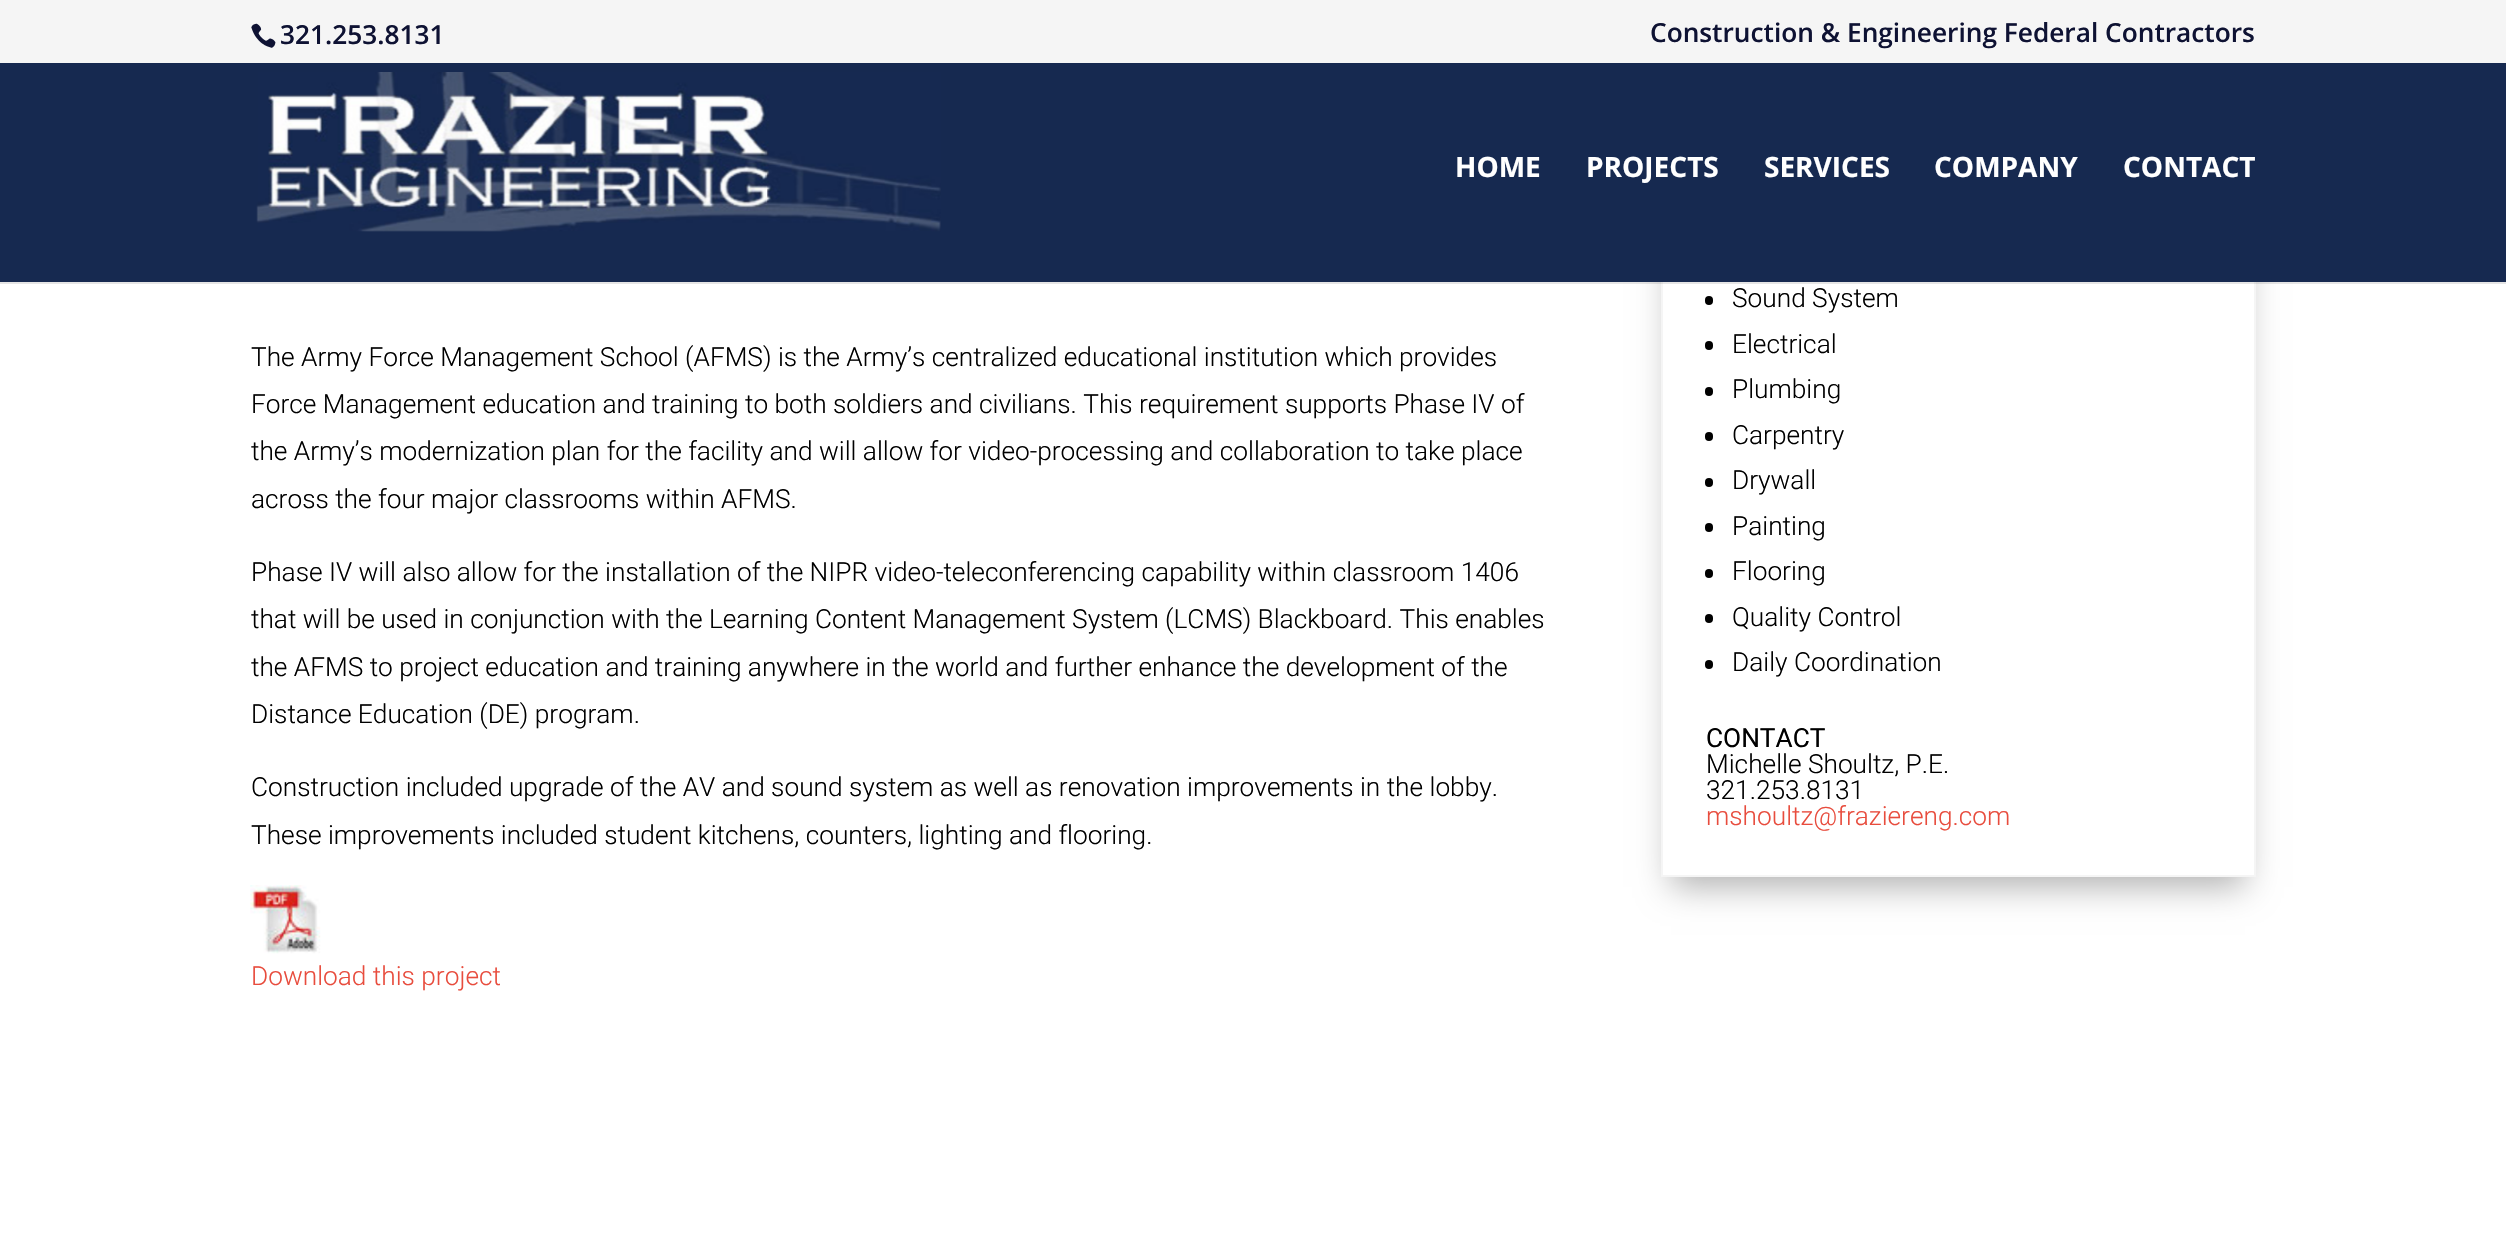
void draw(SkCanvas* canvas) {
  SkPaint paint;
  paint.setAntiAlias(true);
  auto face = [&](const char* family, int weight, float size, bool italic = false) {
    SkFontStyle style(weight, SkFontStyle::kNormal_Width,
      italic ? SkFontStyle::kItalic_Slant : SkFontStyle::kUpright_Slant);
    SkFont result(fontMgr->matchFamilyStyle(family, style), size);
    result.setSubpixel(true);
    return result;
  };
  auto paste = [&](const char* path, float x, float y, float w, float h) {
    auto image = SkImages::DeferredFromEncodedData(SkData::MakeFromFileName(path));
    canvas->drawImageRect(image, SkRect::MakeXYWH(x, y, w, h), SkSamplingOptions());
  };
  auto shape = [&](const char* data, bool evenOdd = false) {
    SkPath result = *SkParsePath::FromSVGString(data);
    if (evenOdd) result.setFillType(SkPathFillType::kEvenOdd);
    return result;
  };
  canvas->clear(0xffffffff);
  canvas->save();
  canvas->clipPath(shape("M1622 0H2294V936H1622ZM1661-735H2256V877H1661Z", true), true);
  paint.setColor(0x4d000000);
  paint.setMaskFilter(SkMaskFilter::MakeBlur(kNormal_SkBlurStyle, 16));
  canvas->drawRect(SkRect::MakeXYWH(1671, -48, 574, 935), paint);
  paint.setMaskFilter(nullptr);
  canvas->restore();
  paint.setStroke(true);
  paint.setStrokeWidth(2);
  paint.setColor(0xfff5f5f5);
  canvas->drawRect(SkRect::MakeXYWH(1662, -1, 593, 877), paint);
  paint.setStroke(false);
  canvas->drawRect(SkRect::MakeXYWH(0, 0, 2506, 63), paint);
  paste("img/1.png", 251, 23, 25, 25);
  paint.setColor(0x1a000000);
  canvas->drawRect(SkRect::MakeXYWH(0, 282, 2506, 2), paint);
  paint.setColor(0xff162950);
  canvas->drawRect(SkRect::MakeXYWH(0, 63, 2506, 219), paint);
  paste("img/2.png", 256, 72, 685, 160);
  paste("img/3.png", 250, 885, 71, 69);
  paint.setColor(0xff000000);
  canvas->drawRoundRect(SkRect::MakeXYWH(1705, 296, 8, 9), 4, 4, paint);
  canvas->drawRoundRect(SkRect::MakeXYWH(1705, 341, 8, 9), 4, 4, paint);
  canvas->drawRoundRect(SkRect::MakeXYWH(1705, 387, 8, 9), 4, 4, paint);
  canvas->drawRoundRect(SkRect::MakeXYWH(1705, 432, 8, 9), 4, 4, paint);
  canvas->drawRoundRect(SkRect::MakeXYWH(1705, 478, 8, 9), 4, 4, paint);
  canvas->drawRoundRect(SkRect::MakeXYWH(1705, 523, 8, 9), 4, 4, paint);
  canvas->drawRoundRect(SkRect::MakeXYWH(1705, 569, 8, 9), 4, 4, paint);
  canvas->drawRoundRect(SkRect::MakeXYWH(1705, 614, 8, 9), 4, 4, paint);
  canvas->drawRoundRect(SkRect::MakeXYWH(1705, 660, 8, 9), 4, 4, paint);
  auto f0 = face("Open Sans", 600, 26.25f);
  paint.setColor(0xff0e1233);
  canvas->drawString("321.253.8131", 280, 44, f0, paint);
  canvas->drawString("Construction & Engineering Federal Contractors", 1650, 42, f0, paint);
  auto f1 = face("Open Sans", 700, 28);
  paint.setColor(0xffffffff);
  {
    const struct { const char* s; float x, y; } items[] = {
      {"HOME", 1455, 177},
      {"PROJECTS", 1586, 177},
      {"SERVICES", 1764, 177},
      {"COMPANY", 1934, 177},
      {"CONTACT", 2123, 177},
    };
    for (auto [s, x, y] : items) {
      canvas->drawString(s, x, y, f1, paint);
    }
  }
  auto f2 = face("Roboto", 300, 26.25f);
  paint.setColor(0xff000000);
  {
    const struct { const char* s; float x, y; } items[] = {
      {"The Army Force Management School (AFMS) is the Army’s centralized educational institution which provides", 251, 366},
      {"Force Management education and training to both soldiers and civilians. This requirement supports Phase IV of", 251, 413},
      {"the Army’s modernization plan for the facility and will allow for video-processing and collaboration to take place", 251, 460},
      {"across the four major classrooms within AFMS.", 251, 508},
      {"Phase IV will also allow for the installation of the NIPR video-teleconferencing capability within classroom 1406", 251, 581},
      {"that will be used in conjunction with the Learning Content Management System (LCMS) Blackboard. This enables", 251, 628},
      {"the AFMS to project education and training anywhere in the world and further enhance the development of the", 251, 676},
      {"Distance Education (DE) program.", 251, 723},
      {"Construction included upgrade of the AV and sound system as well as renovation improvements in the lobby.", 251, 796},
      {"These improvements included student kitchens, counters, lighting and flooring.", 251, 844},
    };
    for (auto [s, x, y] : items) {
      canvas->drawString(s, x, y, f2, paint);
    }
  }
  paint.setColor(0xffe84c3d);
  canvas->drawString("Download this project", 251, 985, f2, paint);
  paint.setColor(0xff000000);
  {
    const struct { const char* s; float x, y; } items[] = {
      {"Sound System", 1732, 307},
      {"Electrical", 1732, 353},
      {"Plumbing", 1732, 398},
      {"Carpentry", 1732, 444},
      {"Drywall", 1732, 489},
      {"Painting", 1732, 535},
      {"Flooring", 1732, 580},
      {"Quality Control", 1732, 626},
      {"Daily Coordination", 1732, 671},
    };
    for (auto [s, x, y] : items) {
      canvas->drawString(s, x, y, f2, paint);
    }
  }
  auto f3 = face("Roboto", 400, 26.25f);
  canvas->drawString("CONTACT", 1706, 747, f3, paint);
  canvas->drawString("Michelle Shoultz, P.E.", 1706, 773, f2, paint);
  canvas->drawString("321.253.8131", 1706, 799, f2, paint);
  paint.setColor(0xffe84c3d);
  canvas->drawString("mshoultz@fraziereng.com", 1706, 825, f2, paint);
}
